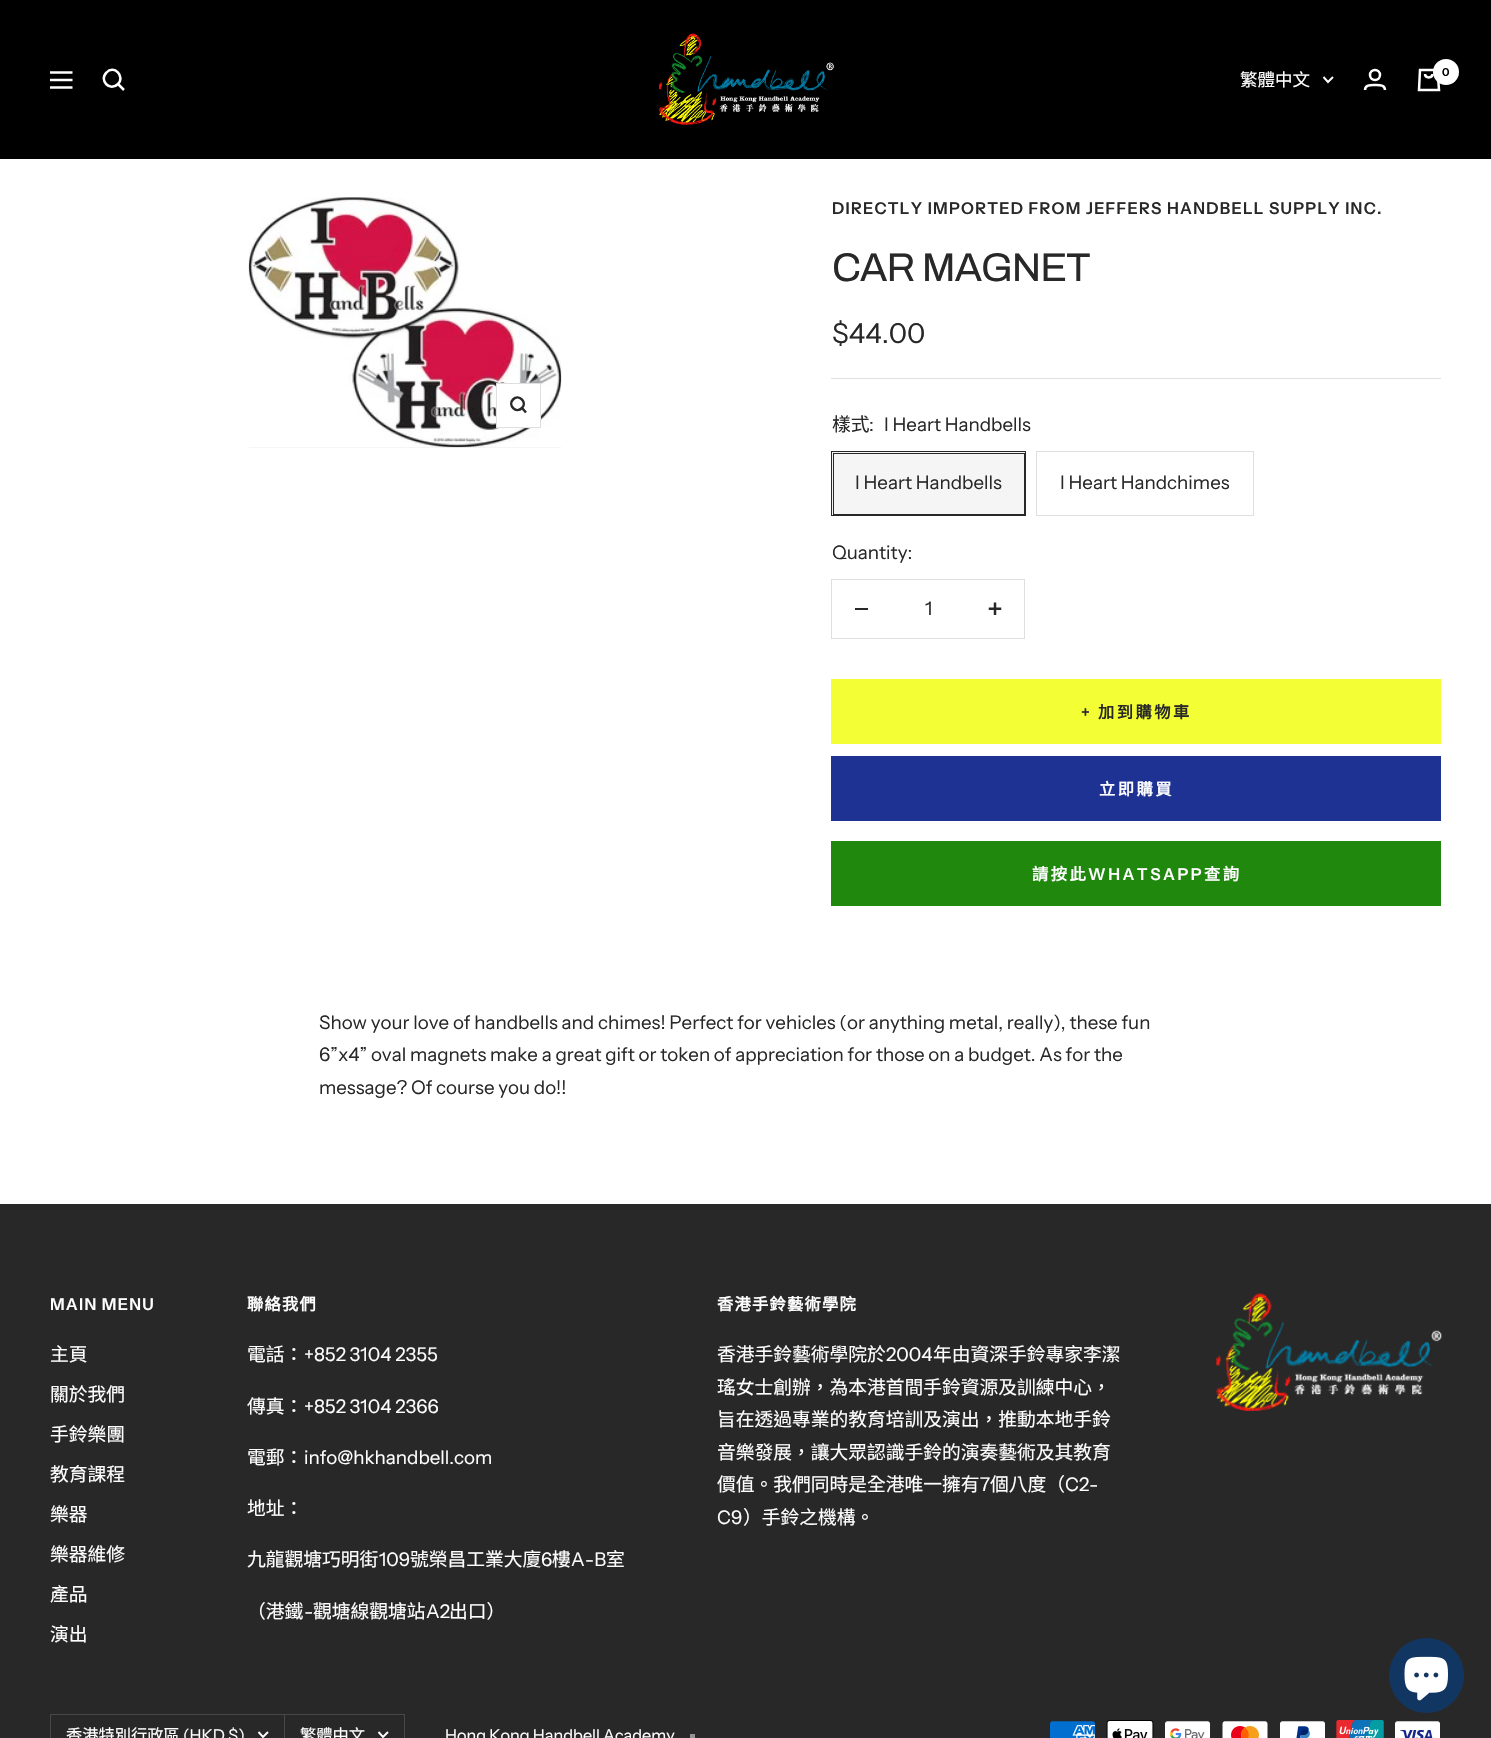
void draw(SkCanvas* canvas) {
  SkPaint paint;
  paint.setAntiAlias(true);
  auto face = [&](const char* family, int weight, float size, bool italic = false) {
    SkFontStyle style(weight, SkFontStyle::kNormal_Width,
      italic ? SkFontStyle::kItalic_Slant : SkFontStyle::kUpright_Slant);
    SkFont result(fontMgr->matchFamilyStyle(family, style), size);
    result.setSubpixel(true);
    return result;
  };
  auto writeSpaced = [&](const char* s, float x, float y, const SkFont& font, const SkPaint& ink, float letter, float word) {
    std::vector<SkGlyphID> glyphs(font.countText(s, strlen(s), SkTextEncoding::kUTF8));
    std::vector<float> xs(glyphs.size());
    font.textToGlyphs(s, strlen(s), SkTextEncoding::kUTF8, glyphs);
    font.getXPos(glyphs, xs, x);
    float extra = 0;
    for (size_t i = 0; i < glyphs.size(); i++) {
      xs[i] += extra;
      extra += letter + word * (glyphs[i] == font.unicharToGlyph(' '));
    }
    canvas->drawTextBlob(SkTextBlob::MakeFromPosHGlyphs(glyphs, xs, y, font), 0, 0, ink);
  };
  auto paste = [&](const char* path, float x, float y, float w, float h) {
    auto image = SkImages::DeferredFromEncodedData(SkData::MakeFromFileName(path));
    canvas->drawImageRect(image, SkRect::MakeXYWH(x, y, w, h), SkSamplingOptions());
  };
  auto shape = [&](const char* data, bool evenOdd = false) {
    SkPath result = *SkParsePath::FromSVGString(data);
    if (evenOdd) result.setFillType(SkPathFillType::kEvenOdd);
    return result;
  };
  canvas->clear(0xffffffff);
  paint.setColor(0xff000000);
  canvas->drawRect(SkRect::MakeXYWH(0, 0, 1491, 159), paint);
  paint.setStroke(true);
  paint.setStrokeWidth(2.5f);
  paint.setColor(0xffffffff);
  canvas->drawPath(shape("M50 72.5H72.5M50 87.5H72.5ZM50 80H72.5Z"), paint);
  canvas->drawPath(shape("M118 84C125.5 76.5 114 64.5 106.5 72.5C98.5 80.5 110 92 118 84ZM118 84L124 90"), paint);
  paste("img/1.png", 658, 33, 176, 92);
  paint.setStrokeWidth(1.9f);
  canvas->drawPath(shape("M1323.5 77L1328 82L1333 77"), paint);
  paint.setStrokeWidth(2.5f);
  canvas->drawCircle(1375, 75, 5, paint);
  canvas->drawPath(shape("M1365 90C1365 84.5 1371 85 1375 85C1379 85 1385 84.5 1385 90"), paint);
  canvas->drawPath(shape("M1420 70H1437.5L1439 90H1419ZM1425 74C1425 78.5 1432.5 78.5 1432.5 74"), paint);
  paint.setStroke(false);
  canvas->drawCircle(1446, 72, 13, paint);
  paint.setColor(0xfff5f5f5);
  canvas->drawRect(SkRect::MakeXYWH(249, 447, 312, 1), paint);
  paste("img/2.png", 248, 197, 314, 251);
  paint.setColor(0xffffffff);
  canvas->drawRect(SkRect::MakeXYWH(496.5f, 383.5f, 44, 44), paint);
  paint.setStroke(true);
  paint.setStrokeWidth(1);
  paint.setColor(0xffdfdfdf);
  canvas->drawRect(SkRect::MakeXYWH(496.5f, 383.5f, 44, 44), paint);
  paint.setStrokeWidth(2.5f);
  paint.setColor(0xff282828);
  canvas->drawPath(shape("M522 408C527.5 402.5 519 393.5 513 399.5C507.5 405 516 414 522 408ZM522 408L526 412.5"), paint);
  paint.setStroke(false);
  paint.setColor(0xffdfdfdf);
  canvas->drawRect(SkRect::MakeXYWH(831, 378, 610, 1), paint);
  paint.setColor(0xfff5f5f5);
  canvas->drawRect(SkRect::MakeXYWH(832, 452, 193, 63), paint);
  paint.setStroke(true);
  paint.setStrokeWidth(1);
  paint.setColor(0xff282828);
  canvas->drawRect(SkRect::MakeXYWH(831.5f, 451.5f, 194, 64), paint);
  canvas->drawRect(SkRect::MakeXYWH(833.5f, 453.5f, 191, 61), paint);
  paint.setColor(0xffdfdfdf);
  canvas->drawRect(SkRect::MakeXYWH(1036.5f, 451.5f, 217, 64), paint);
  canvas->drawRect(SkRect::MakeXYWH(831.5f, 579.5f, 193, 59), paint);
  paint.setStroke(false);
  paint.setColor(0xff282828);
  canvas->drawRect(SkRect::MakeXYWH(855, 608, 13, 2), paint);
  paste("img/3.png", 988, 602, 14, 13);
  {
    const struct { float x, y, w, h; SkColor color; } items[] = {
      {831, 679, 610, 65, 0xfff3ff34},
      {831, 756, 610, 65, 0xff1e3294},
      {831, 841, 610, 65, 0xff1f880d},
      {0, 1204, 1491, 534, 0xff282828},
    };
    for (auto [x, y, w, h, color] : items) {
      paint.setColor(color);
      canvas->drawRect(SkRect::MakeXYWH(x, y, w, h), paint);
    }
  }
  paste("img/4.png", 1216, 1293, 226, 118);
  paint.setStroke(true);
  paint.setColor(0xff484848);
  canvas->drawRect(SkRect::MakeXYWH(50.5f, 1714.5f, 234, 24), paint);
  paint.setStrokeWidth(1.9f);
  paint.setColor(0xffffffff);
  canvas->drawPath(shape("M258.5 1732L263 1737L268 1732"), paint);
  paint.setStrokeWidth(1);
  paint.setColor(0xff484848);
  canvas->drawRect(SkRect::MakeXYWH(284.5f, 1714.5f, 120, 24), paint);
  paint.setStrokeWidth(1.9f);
  paint.setColor(0xffffffff);
  canvas->drawPath(shape("M378.5 1732L383 1737L388 1732"), paint);
  paint.setStroke(false);
  paint.setColor(0xff949494);
  canvas->drawRect(SkRect::MakeXYWH(690, 1734, 5, 4), paint);
  paste("img/5.png", 1050, 1721, 45, 17);
  paste("img/6.png", 1106, 1720, 48, 18);
  paste("img/7.png", 1165, 1721, 45, 17);
  paste("img/8.png", 1222, 1721, 46, 17);
  paste("img/9.png", 1280, 1721, 45, 17);
  paste("img/10.png", 1336, 1720, 48, 18);
  paste("img/11.png", 1395, 1721, 45, 17);
  paint.setColor(0xff123662);
  canvas->drawCircle(1426.5f, 1675.5f, 37.5f, paint);
  paste("img/12.png", 1404, 1656, 44, 45);
  auto f0 = face("Noto Sans CJK TC", 400, 17.5f);
  paint.setColor(0xffffffff);
  canvas->drawString("繁體中文", 1240, 86, f0, paint);
  auto f1 = face("Instrument Sans", 600, 11);
  paint.setColor(0xff000000);
  canvas->drawString("0", 1442, 76, f1, paint);
  auto f2 = face("Instrument Sans", 600, 16.25f);
  paint.setColor(0xff282828);
  writeSpaced("DIRECTLY IMPORTED FROM JEFFERS HANDBELL SUPPLY INC.", 832, 214, f2, paint, 1.25f, 0);
  auto f3 = face("Archivo", 400, 40);
  writeSpaced("CAR MAGNET", 832, 281, f3, paint, -1, 0);
  auto f4 = face("Instrument Sans", 400, 27.5f);
  canvas->drawString("$44.00", 832, 343, f4, paint);
  auto f5 = face("Noto Sans CJK TC", 400, 18.75f);
  canvas->drawString("樣式", 832, 431, f5, paint);
  auto f6 = face("Instrument Sans", 400, 18.75f);
  {
    const struct { const char* s; float x, y; } items[] = {
      {":", 869, 431},
      {"I Heart Handbells", 884, 431},
      {"I Heart Handbells", 855, 489},
      {"I Heart Handchimes", 1060, 489},
      {"Quantity:", 832, 559},
      {"1", 925, 615},
    };
    for (auto [s, x, y] : items) {
      canvas->drawString(s, x, y, f6, paint);
    }
  }
  writeSpaced("+", 1081, 718, f2, paint, 2.5f, 0);
  auto f7 = face("Noto Sans CJK TC", 700, 16.25f);
  writeSpaced("加到購物車", 1098, 718, f7, paint, 2.5f, 0);
  paint.setColor(0xffffffff);
  writeSpaced("立即購買", 1099, 795, f7, paint, 2.5f, 0);
  writeSpaced("請按此", 1032, 880, f7, paint, 2.5f, 0);
  writeSpaced("WHATSAPP", 1088, 880, f2, paint, 2.5f, 0);
  writeSpaced("查詢", 1204, 880, f7, paint, 2.5f, 0);
  paint.setColor(0xff282828);
  {
    const struct { const char* s; float x, y; } items[] = {
      {"Show your love of handbells and chimes! Perfect for vehicles (or anything metal, really), these fun", 319, 1029},
      {"6”x4” oval magnets make a great gift or token of appreciation for those on a budget. As for the", 319, 1061},
      {"message? Of course you do!!", 319, 1094},
    };
    for (auto [s, x, y] : items) {
      canvas->drawString(s, x, y, f6, paint);
    }
  }
  paint.setColor(0xffffffff);
  writeSpaced("MAIN MENU", 50, 1310, f2, paint, 1.25f, 0);
  {
    const struct { const char* s; float x, y; } items[] = {
      {"主頁", 50, 1361},
      {"關於我們", 50, 1401},
      {"手鈴樂團", 50, 1441},
      {"教育課程", 50, 1481},
      {"樂器", 50, 1521},
      {"樂器維修", 50, 1561},
      {"產品", 50, 1601},
      {"演出", 50, 1641},
    };
    for (auto [s, x, y] : items) {
      canvas->drawString(s, x, y, f5, paint);
    }
  }
  writeSpaced("聯絡我們", 247, 1310, f7, paint, 1.25f, 0);
  canvas->drawString("電話：", 247, 1361, f5, paint);
  canvas->drawString("+852 3104 2355", 304, 1361, f6, paint);
  canvas->drawString("傳真：", 247, 1413, f5, paint);
  canvas->drawString("+852 3104 2366", 304, 1413, f6, paint);
  canvas->drawString("電郵：", 247, 1464, f5, paint);
  canvas->drawString("info@hkhandbell.com", 304, 1464, f6, paint);
  canvas->drawString("地址：", 247, 1515, f5, paint);
  canvas->drawString("九龍觀塘巧明街", 247, 1566, f5, paint);
  canvas->drawString("109", 379, 1566, f6, paint);
  canvas->drawString("號榮昌工業大廈", 410, 1566, f5, paint);
  canvas->drawString("6", 541, 1566, f6, paint);
  canvas->drawString("樓", 552, 1566, f5, paint);
  canvas->drawString("A-B", 571, 1566, f6, paint);
  canvas->drawString("室", 606, 1566, f5, paint);
  canvas->drawString("（港鐵", 247, 1618, f5, paint);
  canvas->drawString("-", 304, 1618, f6, paint);
  canvas->drawString("觀塘線觀塘站", 313, 1618, f5, paint);
  canvas->drawString("A2", 426, 1618, f6, paint);
  canvas->drawString("出口）", 449, 1618, f5, paint);
  writeSpaced("香港手鈴藝術學院", 717, 1310, f7, paint, 1.25f, 0);
  canvas->drawString("香港手鈴藝術學院於", 717, 1361, f5, paint);
  canvas->drawString("2004", 886, 1361, f6, paint);
  {
    const struct { const char* s; float x, y; } items[] = {
      {"年由資深手鈴專家李潔", 933, 1361},
      {"瑤女士創辦，為本港首間手鈴資源及訓練中心，", 717, 1394},
      {"旨在透過專業的教育培訓及演出，推動本地手鈴", 717, 1426},
      {"音樂發展，讓大眾認識手鈴的演奏藝術及其教育", 717, 1459},
      {"價值。我們同時是全港唯一擁有", 717, 1491},
    };
    for (auto [s, x, y] : items) {
      canvas->drawString(s, x, y, f5, paint);
    }
  }
  canvas->drawString("7", 980, 1491, f6, paint);
  canvas->drawString("個八度（", 990, 1491, f5, paint);
  canvas->drawString("C2-", 1065, 1491, f6, paint);
  canvas->drawString("C9", 717, 1524, f6, paint);
  canvas->drawString("）手鈴之機構。", 743, 1524, f5, paint);
  auto f8 = face("Noto Sans CJK TC", 400, 16.25f);
  canvas->drawString("香港特別行政區", 66, 1741, f8, paint);
  auto f9 = face("Instrument Sans", 400, 16.25f);
  canvas->drawString("(HKD $)", 183, 1741, f9, paint);
  canvas->drawString("繁體中文", 300, 1741, f8, paint);
  canvas->drawString("Hong Kong Handbell Academy", 445, 1741, f9, paint);
}
